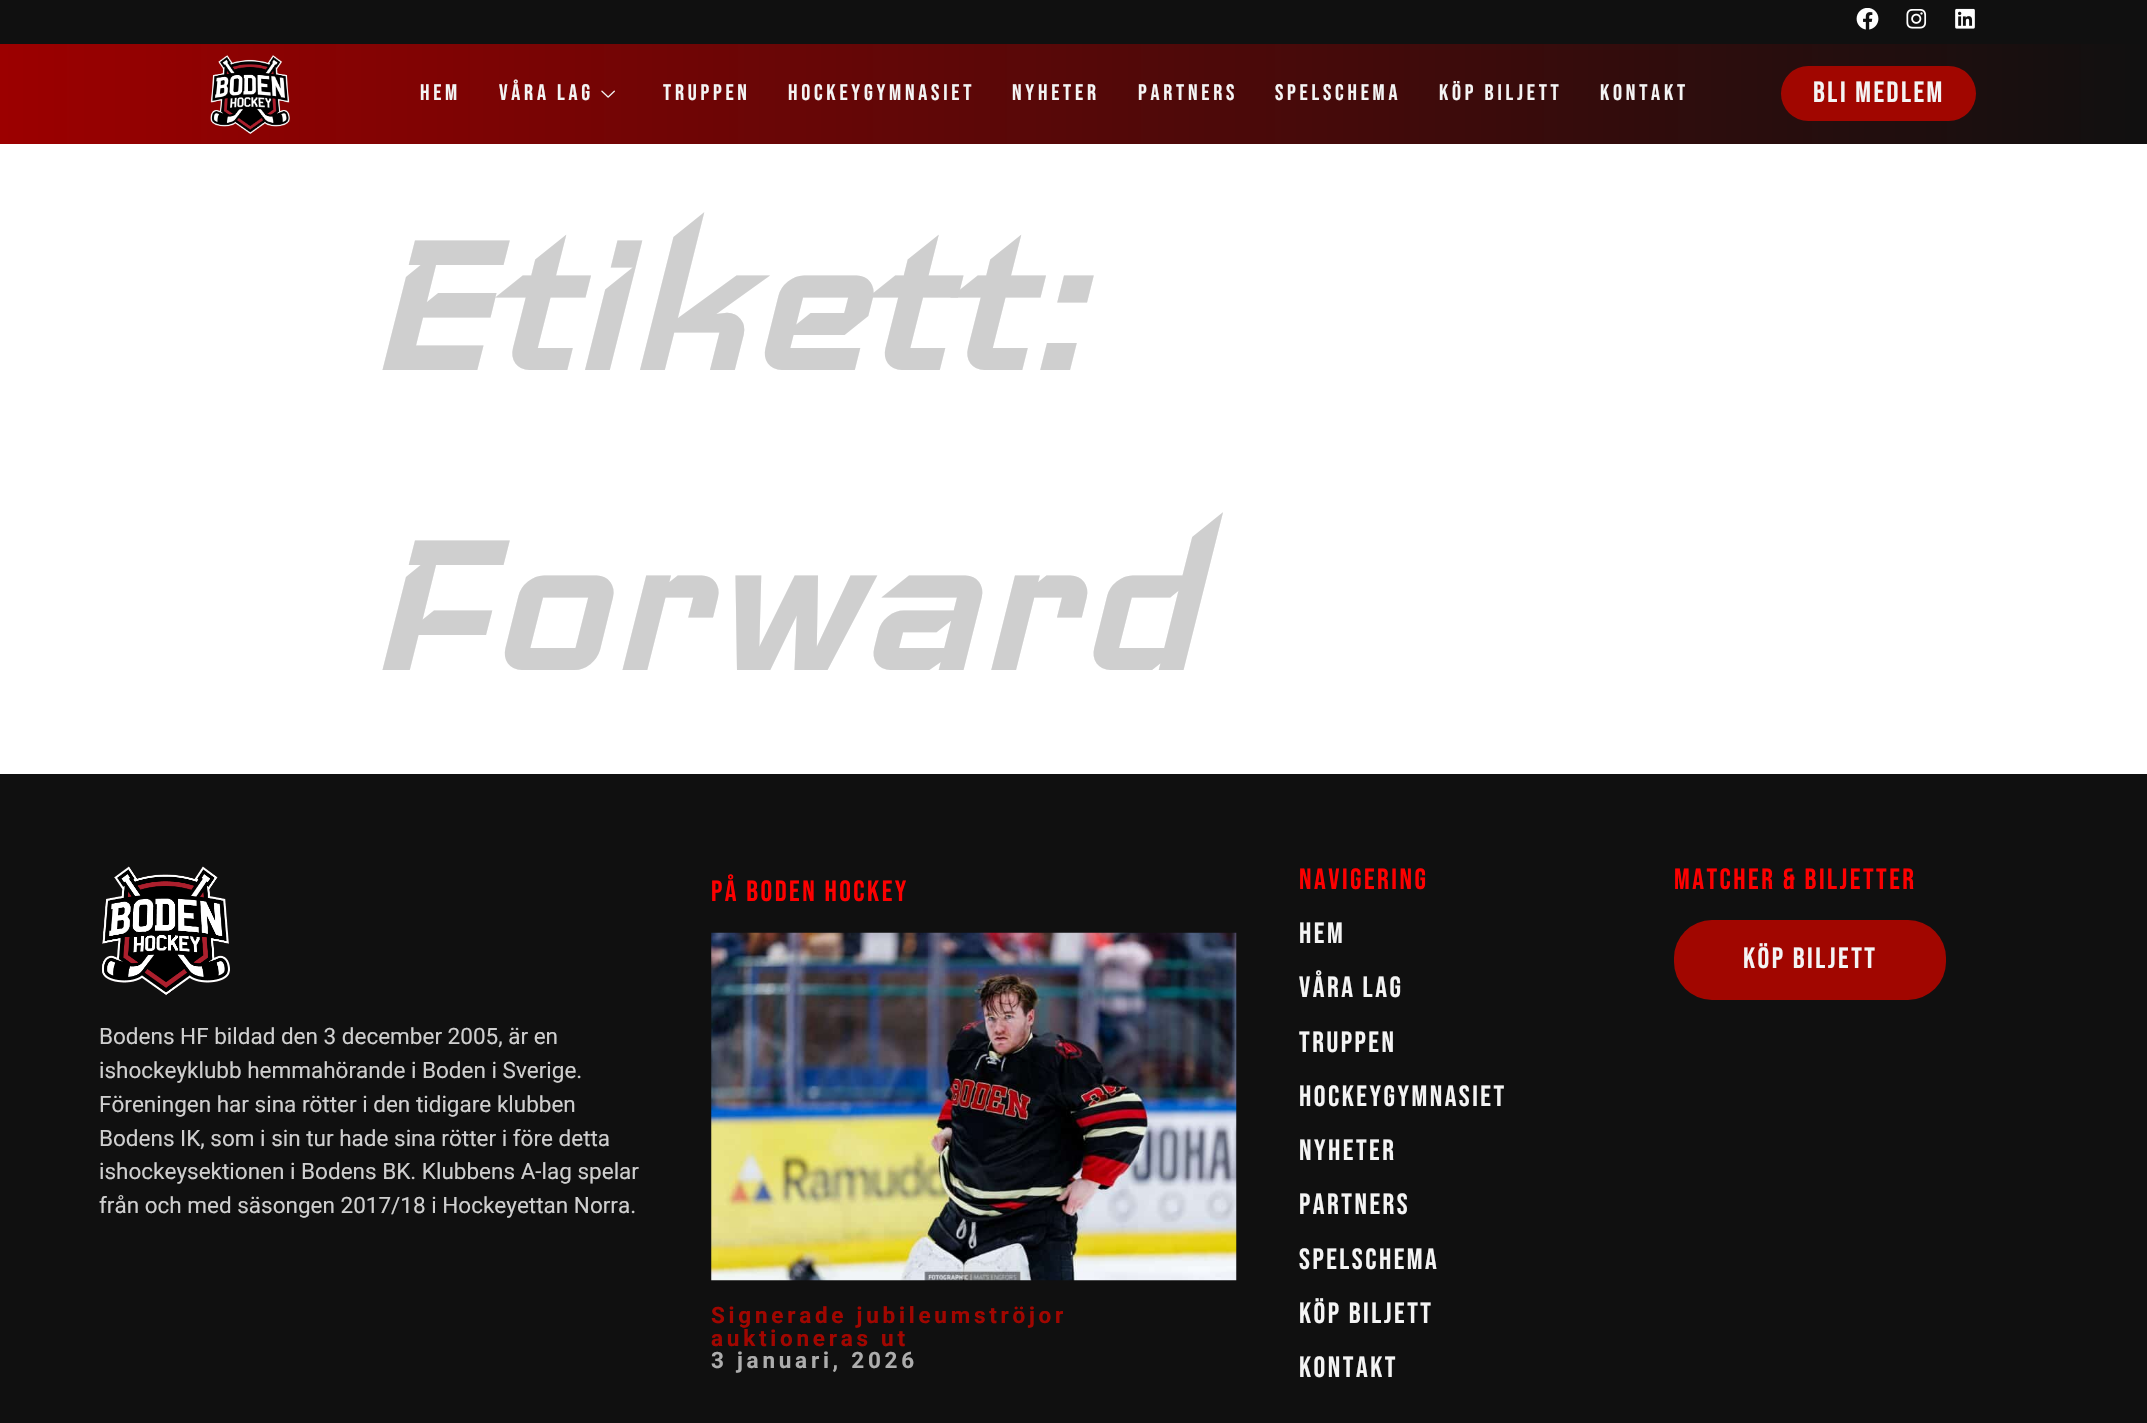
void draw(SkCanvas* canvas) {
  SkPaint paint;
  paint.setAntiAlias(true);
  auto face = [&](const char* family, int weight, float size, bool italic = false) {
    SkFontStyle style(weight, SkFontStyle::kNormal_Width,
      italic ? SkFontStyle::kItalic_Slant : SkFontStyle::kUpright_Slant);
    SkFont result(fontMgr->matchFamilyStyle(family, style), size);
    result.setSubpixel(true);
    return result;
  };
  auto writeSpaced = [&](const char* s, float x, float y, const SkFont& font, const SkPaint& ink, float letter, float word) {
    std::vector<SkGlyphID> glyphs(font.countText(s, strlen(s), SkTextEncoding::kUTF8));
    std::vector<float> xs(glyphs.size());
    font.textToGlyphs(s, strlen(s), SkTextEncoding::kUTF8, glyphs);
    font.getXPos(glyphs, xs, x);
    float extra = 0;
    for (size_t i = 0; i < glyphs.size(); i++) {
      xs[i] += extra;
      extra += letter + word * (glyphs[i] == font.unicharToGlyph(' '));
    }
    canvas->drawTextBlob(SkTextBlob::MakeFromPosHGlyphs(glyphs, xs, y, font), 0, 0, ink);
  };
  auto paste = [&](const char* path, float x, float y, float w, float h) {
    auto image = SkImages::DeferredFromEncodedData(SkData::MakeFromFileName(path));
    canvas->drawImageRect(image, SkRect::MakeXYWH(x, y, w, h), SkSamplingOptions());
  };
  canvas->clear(0xffffffff);
  paint.setColor(0xff101010);
  canvas->drawRect(SkRect::MakeXYWH(0, 0, 2147, 44), paint);
  paste("img/1.png", 1856, 8, 23, 22);
  paste("img/2.png", 1906, 9, 21, 20);
  paste("img/3.png", 1955, 8, 20, 21);
  {
    const SkColor colors[] = {0xff101010, 0xff9c0000};
    const float stops[] = {0, 1};
    const SkPoint ends[] = {{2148, 94}, {0, 94}};
    paint.setShader(SkGradientShader::MakeLinear(ends, colors, stops, 2, SkTileMode::kClamp));
    paint.setAlpha(255);
  }
  canvas->drawRect(SkRect::MakeXYWH(0, 44, 2147, 100), paint);
  paste("img/4.png", 210, 55, 80, 79);
  paste("img/5.png", 601, 90, 14, 8);
  paint.setShader(nullptr);
  paint.setColor(0xffa10600);
  canvas->drawRoundRect(SkRect::MakeXYWH(1781, 66, 195, 55), 27.5f, 27.5f, paint);
  paint.setColor(0xff101010);
  canvas->drawRect(SkRect::MakeXYWH(0, 774, 2147, 649), paint);
  paste("img/6.png", 101, 866, 129, 130);
  paste("img/7.png", 711, 932, 526, 349);
  paint.setColor(0xffa10600);
  canvas->drawRoundRect(SkRect::MakeXYWH(1674, 920, 272, 80), 38, 38, paint);
  auto f0 = face("Bebas Neue", 400, 22.5f);
  paint.setColor(0xfff4f4f4);
  {
    const struct { const char* s; float x, y; } items[] = {
      {"Hem", 420, 100},
      {"Våra lag", 499, 100},
      {"Truppen", 663, 100},
      {"Hockeygymnasiet", 788, 100},
      {"Nyheter", 1012, 100},
      {"Partners", 1138, 100},
      {"Spelschema", 1275, 100},
      {"Köp biljett", 1439, 100},
      {"Kontakt", 1600, 100},
    };
    for (auto [s, x, y] : items) {
      writeSpaced(s, x, y, f0, paint, 3.75f, 0);
    }
  }
  auto f1 = face("Bebas Neue", 400, 29.25f);
  writeSpaced("Bli medlem", 1813, 102, f1, paint, 2.5f, 0);
  auto f2 = face("Iceland", 700, 250, true);
  paint.setColor(0xffcfcfcf);
  canvas->drawString("Etikett:", 361, 370, f2, paint);
  canvas->drawString("Forward", 361, 670, f2, paint);
  auto f3 = face("Roboto", 400, 22.5f);
  {
    const struct { const char* s; float x, y; } items[] = {
      {"Bodens HF bildad den 3 december 2005, är en", 99, 1044},
      {"ishockeyklubb hemmahörande i Boden i Sverige.", 99, 1078},
      {"Föreningen har sina rötter i den tidigare klubben", 99, 1112},
      {"Bodens IK, som i sin tur hade sina rötter i före detta", 99, 1146},
      {"ishockeysektionen i Bodens BK. Klubbens A-lag spelar", 99, 1179},
      {"från och med säsongen 2017/18 i Hockeyettan Norra.", 99, 1213},
    };
    for (auto [s, x, y] : items) {
      canvas->drawString(s, x, y, f3, paint);
    }
  }
  paint.setColor(0xfffd0000);
  writeSpaced("På Boden hockey", 711, 901, f1, paint, 2.5f, 0);
  auto f4 = face("Roboto", 700, 22.5f);
  paint.setColor(0xffa10600);
  writeSpaced("Signerade jubileumströjor", 711, 1323, f4, paint, 3.75f, 0);
  writeSpaced("auktioneras ut", 711, 1346, f4, paint, 3.75f, 0);
  paint.setColor(0xffadadad);
  writeSpaced("3 januari, 2026", 711, 1368, f4, paint, 3.75f, 0);
  paint.setColor(0xfffd0000);
  writeSpaced("Navigering", 1299, 889, f1, paint, 2.5f, 0);
  paint.setColor(0xfff4f4f4);
  {
    const struct { const char* s; float x, y; } items[] = {
      {"Hem", 1299, 943},
      {"Våra lag", 1299, 997},
      {"Truppen", 1299, 1052},
      {"Hockeygymnasiet", 1299, 1106},
      {"Nyheter", 1299, 1160},
      {"Partners", 1299, 1214},
      {"Spelschema", 1299, 1269},
      {"Köp biljett", 1299, 1323},
      {"Kontakt", 1299, 1377},
    };
    for (auto [s, x, y] : items) {
      writeSpaced(s, x, y, f1, paint, 2.5f, 0);
    }
  }
  paint.setColor(0xfffd0000);
  writeSpaced("Matcher & biljetter", 1674, 889, f1, paint, 2.5f, 0);
  paint.setColor(0xfff4f4f4);
  writeSpaced("Köp biljett", 1743, 968, f1, paint, 2.5f, 0);
}
